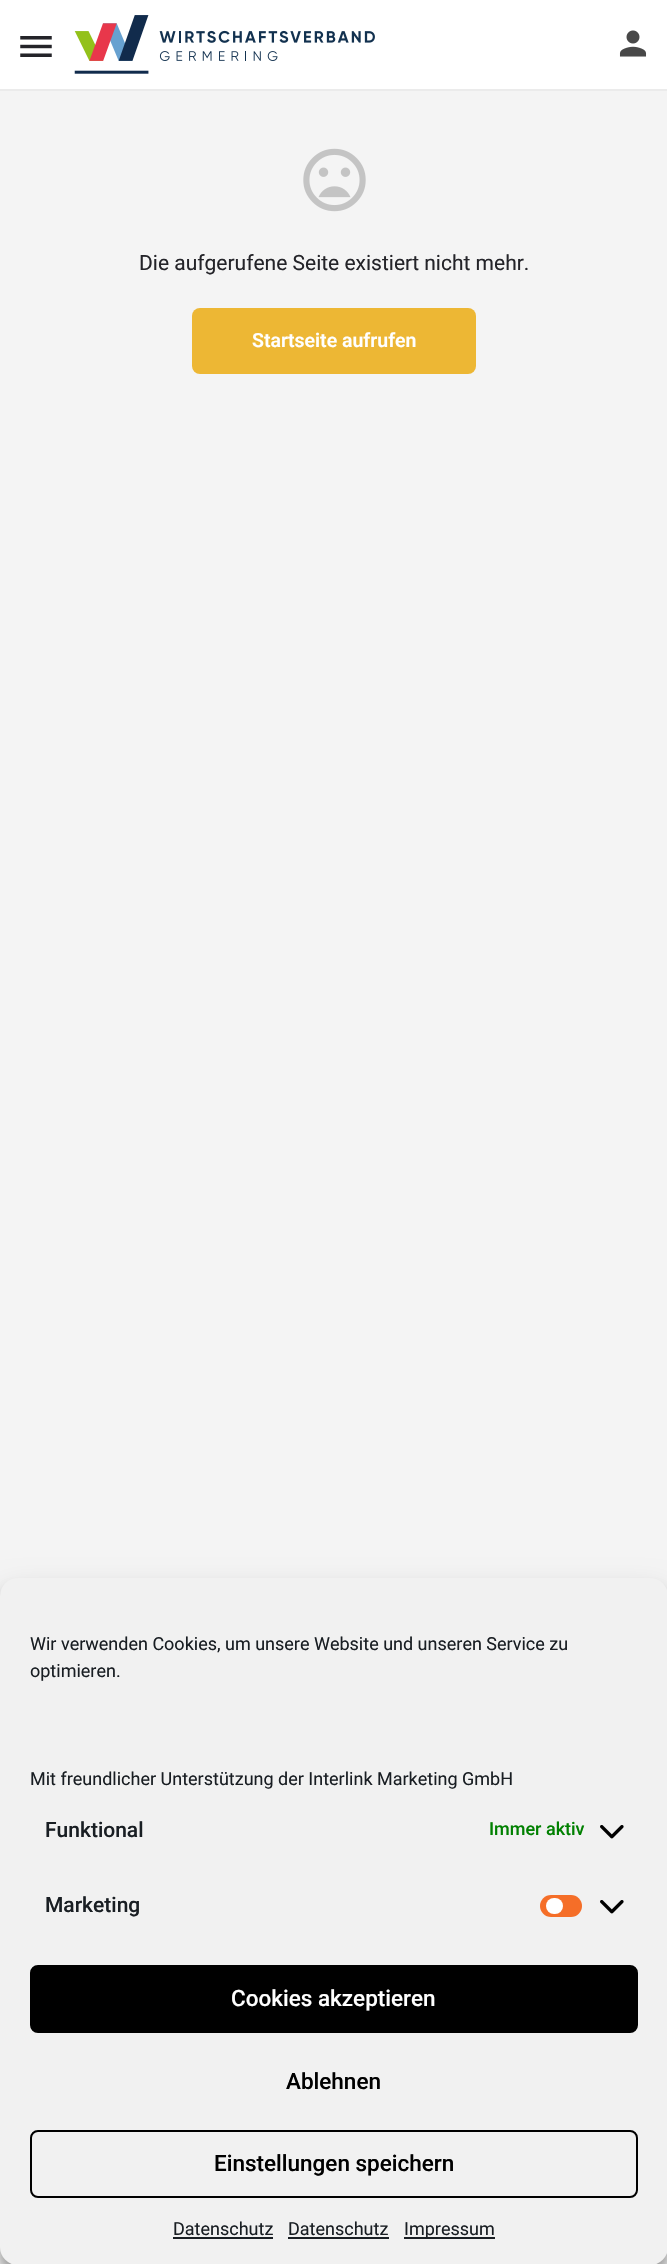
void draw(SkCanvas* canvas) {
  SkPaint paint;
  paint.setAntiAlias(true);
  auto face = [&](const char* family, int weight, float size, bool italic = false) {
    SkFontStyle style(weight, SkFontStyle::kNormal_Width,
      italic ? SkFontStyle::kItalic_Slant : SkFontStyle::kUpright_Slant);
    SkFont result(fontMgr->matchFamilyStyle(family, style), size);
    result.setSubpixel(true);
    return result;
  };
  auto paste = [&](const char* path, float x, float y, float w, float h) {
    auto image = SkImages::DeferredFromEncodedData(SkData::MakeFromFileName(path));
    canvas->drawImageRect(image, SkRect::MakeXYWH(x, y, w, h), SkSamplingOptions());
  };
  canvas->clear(0xfff4f4f4);
  paint.setColor(0xffffffff);
  canvas->drawRect(SkRect::MakeXYWH(0, 0, 667, 89), paint);
  paint.setColor(0xffebebeb);
  canvas->drawRect(SkRect::MakeXYWH(0, 89, 667, 2), paint);
  paste("img/1.png", 20, 36, 32, 21);
  paste("img/2.png", 74, 15, 301, 59);
  paste("img/3.png", 619, 30, 28, 27);
  paste("img/4.png", 303, 148, 63, 64);
  paint.setColor(0xffedb734);
  canvas->drawRoundRect(SkRect::MakeXYWH(192, 308, 284, 66), 8, 8, paint);
  paint.setColor(0x3b000000);
  paint.setMaskFilter(SkMaskFilter::MakeBlur(kNormal_SkBlurStyle, 4.5f));
  canvas->drawRoundRect(SkRect::MakeXYWH(0, 1587, 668, 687), 18, 18, paint);
  paint.setMaskFilter(nullptr);
  paint.setColor(0x30000000);
  paint.setMaskFilter(SkMaskFilter::MakeBlur(kNormal_SkBlurStyle, 15));
  canvas->drawRoundRect(SkRect::MakeXYWH(0, 1593, 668, 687), 18, 18, paint);
  paint.setMaskFilter(nullptr);
  paint.setColor(0xfff1f1f1);
  canvas->drawRoundRect(SkRect::MakeXYWH(0, 1578, 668, 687), 18, 18, paint);
  paste("img/5.png", 600, 1825, 24, 14);
  paint.setColor(0xfff56e28);
  canvas->drawRoundRect(SkRect::MakeXYWH(540, 1895, 42, 22), 11, 11, paint);
  paint.setColor(0xffffffff);
  canvas->drawRoundRect(SkRect::MakeXYWH(546, 1898, 17, 16), 8, 8, paint);
  paste("img/5.png", 600, 1900, 24, 14);
  paint.setColor(0xff000000);
  canvas->drawRoundRect(SkRect::MakeXYWH(31, 1966, 606, 66), 7, 7, paint);
  paint.setStroke(true);
  paint.setStrokeWidth(2);
  canvas->drawRoundRect(SkRect::MakeXYWH(31, 1966, 606, 66), 7, 7, paint);
  canvas->drawRoundRect(SkRect::MakeXYWH(31, 2131, 606, 66), 7, 7, paint);
  paint.setStroke(false);
  {
    const struct { float x, y, w, h; SkColor color; } items[] = {
      {173, 2237, 100, 2, 0xff191e23},
      {288, 2237, 101, 2, 0xff191e23},
      {404, 2237, 91, 2, 0xff191e23},
    };
    for (auto [x, y, w, h, color] : items) {
      paint.setColor(color);
      canvas->drawRect(SkRect::MakeXYWH(x, y, w, h), paint);
    }
  }
  auto f0 = face("Roboto", 400, 21);
  paint.setColor(0xff242429);
  canvas->drawString("Die aufgerufene Seite existiert nicht mehr.", 139, 270, f0, paint);
  auto f1 = face("Roboto", 600, 19.5f);
  paint.setColor(0xffffffff);
  canvas->drawString("Startseite aufrufen", 252, 347, f1, paint);
  auto f2 = face("Roboto", 400, 18);
  paint.setColor(0xff191e23);
  {
    const struct { const char* s; float x, y; } items[] = {
      {"Wir verwenden Cookies, um unsere Website und unseren Service zu", 30, 1650},
      {"optimieren.", 30, 1677},
      {"Mit freundlicher Unterstützung der Interlink Marketing GmbH", 30, 1785},
    };
    for (auto [s, x, y] : items) {
      canvas->drawString(s, x, y, f2, paint);
    }
  }
  auto f3 = face("Roboto", 500, 21);
  canvas->drawString("Funktional", 45, 1837, f3, paint);
  auto f4 = face("Roboto", 500, 18);
  paint.setColor(0xff008000);
  canvas->drawString("Immer aktiv", 489, 1835, f4, paint);
  paint.setColor(0xff191e23);
  canvas->drawString("Marketing", 45, 1912, f3, paint);
  auto f5 = face("Roboto", 500, 22.5f);
  paint.setColor(0xffffffff);
  canvas->drawString("Cookies akzeptieren", 231, 2006, f5, paint);
  paint.setColor(0xff000000);
  canvas->drawString("Ablehnen", 286, 2089, f5, paint);
  canvas->drawString("Einstellungen speichern", 214, 2171, f5, paint);
  paint.setColor(0xff191e23);
  {
    const struct { const char* s; float x, y; } items[] = {
      {"Datenschutz", 173, 2235},
      {"Datenschutz", 288, 2235},
      {"Impressum", 404, 2235},
    };
    for (auto [s, x, y] : items) {
      canvas->drawString(s, x, y, f2, paint);
    }
  }
}
